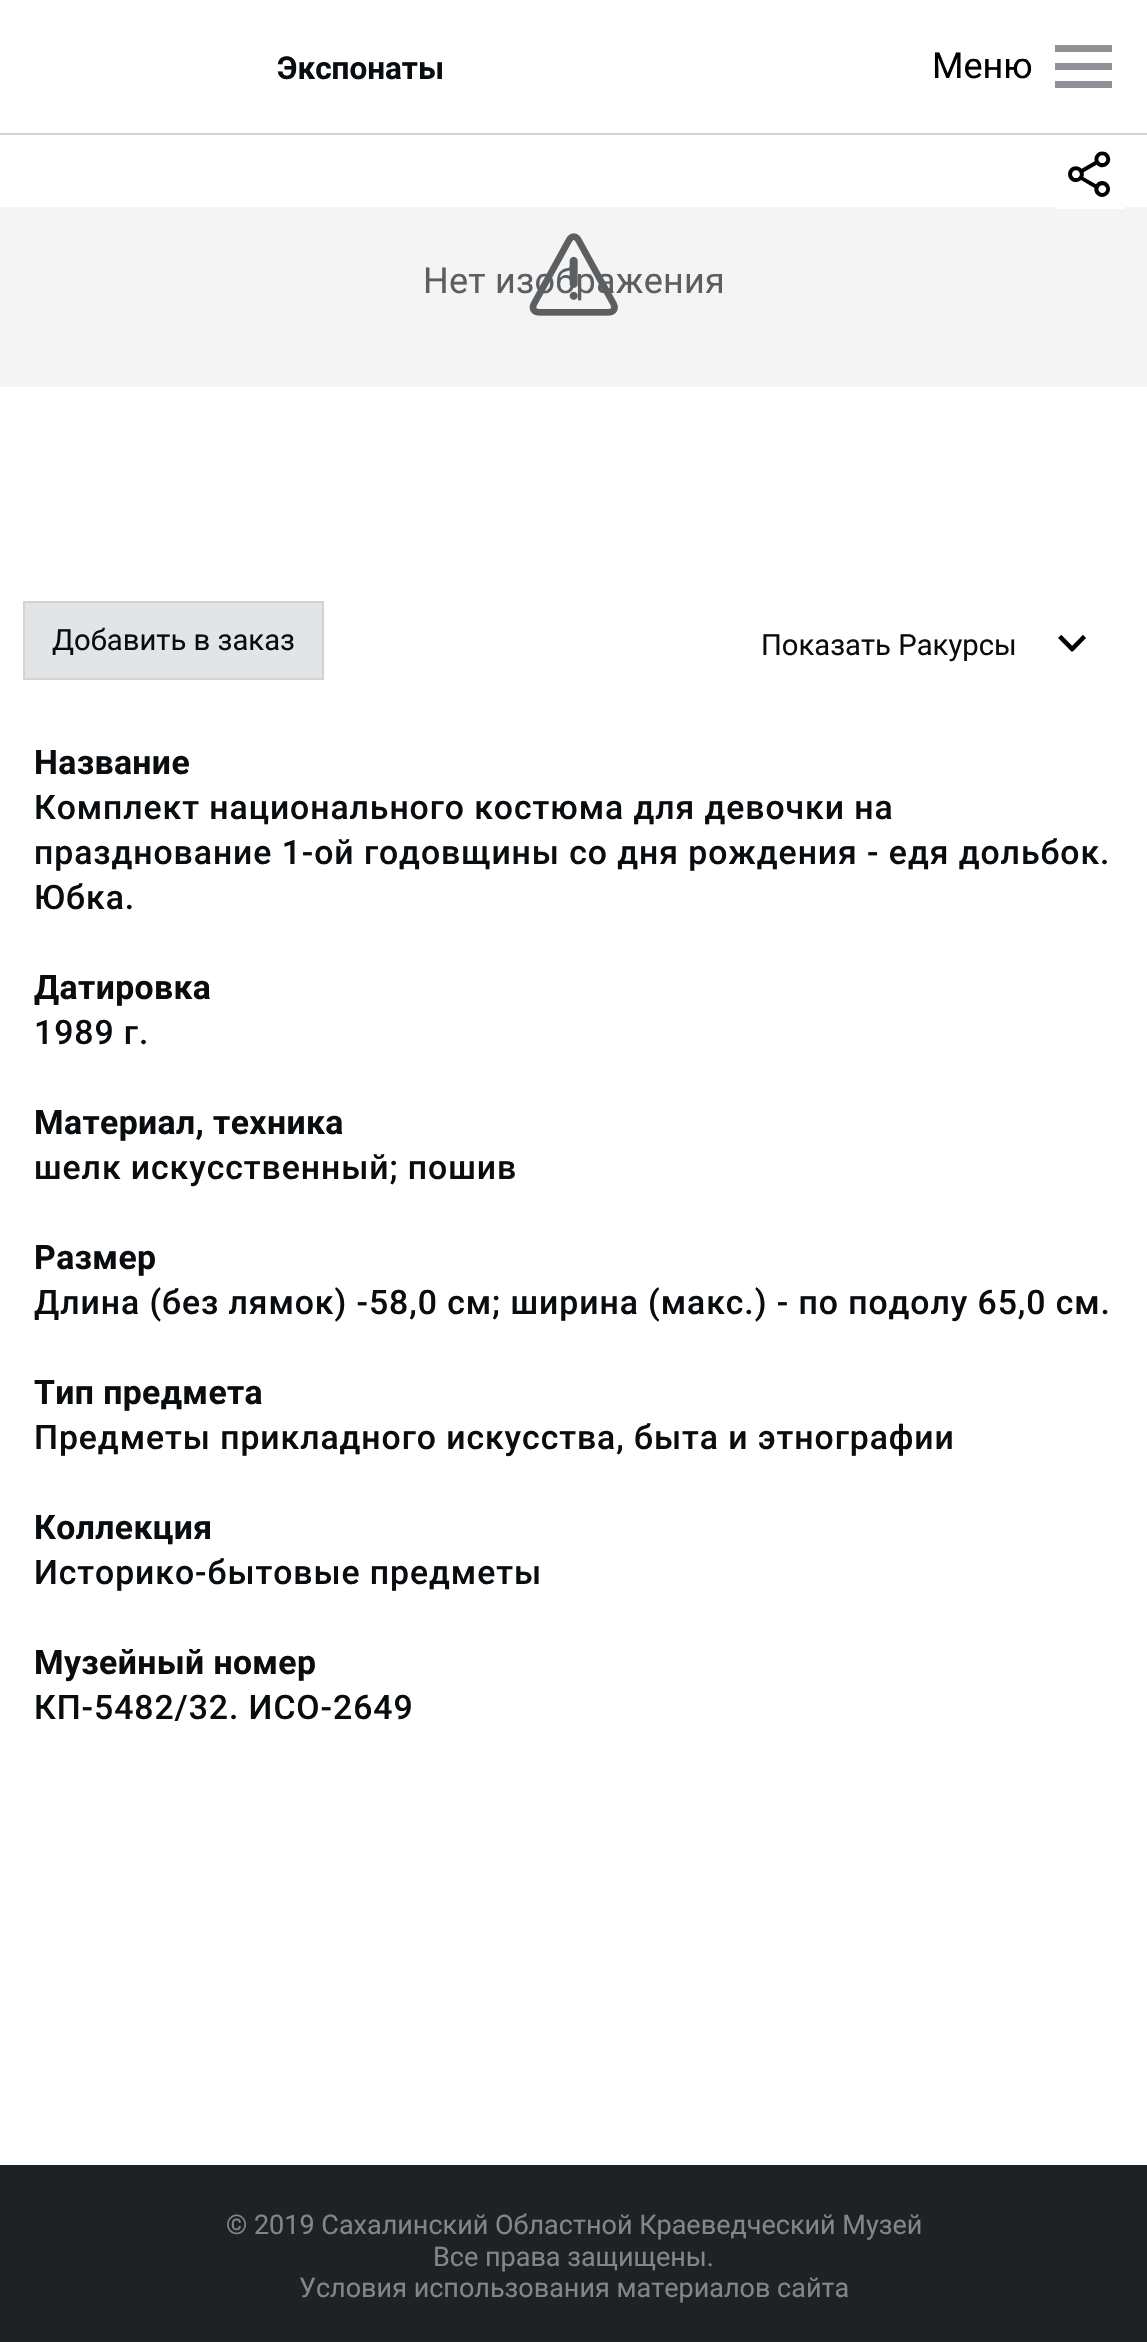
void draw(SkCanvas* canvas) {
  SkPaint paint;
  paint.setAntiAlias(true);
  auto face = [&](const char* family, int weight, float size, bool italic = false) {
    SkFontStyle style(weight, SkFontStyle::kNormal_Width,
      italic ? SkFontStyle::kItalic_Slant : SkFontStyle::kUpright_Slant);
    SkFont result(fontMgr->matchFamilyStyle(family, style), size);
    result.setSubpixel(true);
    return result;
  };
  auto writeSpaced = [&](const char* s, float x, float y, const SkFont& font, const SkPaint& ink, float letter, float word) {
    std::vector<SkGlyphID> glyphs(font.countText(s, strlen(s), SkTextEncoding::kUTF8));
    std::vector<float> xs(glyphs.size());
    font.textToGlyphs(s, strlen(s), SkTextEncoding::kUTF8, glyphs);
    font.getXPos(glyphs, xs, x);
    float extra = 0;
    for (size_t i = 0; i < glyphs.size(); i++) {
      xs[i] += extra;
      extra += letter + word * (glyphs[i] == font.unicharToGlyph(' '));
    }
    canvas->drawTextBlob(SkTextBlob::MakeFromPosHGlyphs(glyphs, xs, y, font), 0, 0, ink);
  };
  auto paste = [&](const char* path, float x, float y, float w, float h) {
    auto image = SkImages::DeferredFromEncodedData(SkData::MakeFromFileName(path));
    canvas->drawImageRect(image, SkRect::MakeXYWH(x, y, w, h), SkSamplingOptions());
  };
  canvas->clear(0xffffffff);
  {
    const struct { float x, y, w, h; SkColor color; } items[] = {
      {0, 133, 1147, 2, 0xffd3d3d3},
      {1055, 45, 57, 7, 0xff8e9195},
      {1055, 63, 57, 7, 0xff8e9195},
      {1055, 81, 57, 7, 0xff8e9195},
      {0, 207, 1147, 180, 0xfff4f4f5},
    };
    for (auto [x, y, w, h, color] : items) {
      paint.setColor(color);
      canvas->drawRect(SkRect::MakeXYWH(x, y, w, h), paint);
    }
  }
  paint.setColor(0xffe2e5e8);
  canvas->drawRect(SkRect::MakeXYWH(24, 602, 299, 77), paint);
  paint.setStroke(true);
  paint.setStrokeWidth(2);
  paint.setColor(0xffd3d3d3);
  canvas->drawRect(SkRect::MakeXYWH(24, 602, 299, 77), paint);
  paste("img/2.png", 1058, 634, 28, 18);
  paint.setStroke(false);
  paint.setColor(0xffffffff);
  canvas->drawRect(SkRect::MakeXYWH(1055, 207, 70, 2), paint);
  paste("img/3.png", 1068, 151, 43, 46);
  paint.setColor(0xff1f2224);
  canvas->drawRect(SkRect::MakeXYWH(0, 2165, 1147, 177), paint);
  auto f0 = face("Roboto", 700, 31.5f);
  paint.setColor(0xff0a0d10);
  canvas->drawString("Экспонаты", 277, 79, f0, paint);
  auto f1 = face("Roboto", 400, 36);
  paint.setColor(0xff000000);
  canvas->drawString("Меню", 932, 78, f1, paint);
  paint.setColor(0xff5c5f62);
  writeSpaced("Нет изображения", 423, 293, f1, paint, 0.25f, 0);
  paste("img/1.png", 529, 233, 89, 83);
  auto f2 = face("Roboto", 400, 29.25f);
  paint.setColor(0xff0a0d10);
  canvas->drawString("Добавить в заказ", 52, 650, f2, paint);
  canvas->drawString("Показать Ракурсы", 761, 655, f2, paint);
  auto f3 = face("Roboto", 700, 33.75f);
  writeSpaced("Название", 34, 774, f3, paint, 0.4f, 0);
  auto f4 = face("Roboto", 500, 33.75f);
  {
    const struct { const char* s; float x, y; } items[] = {
      {"Комплект национального костюма для девочки на", 34, 819},
      {"празднование 1-ой годовщины со дня рождения - едя дольбок.", 34, 864},
      {"Юбка.", 34, 909},
    };
    for (auto [s, x, y] : items) {
      writeSpaced(s, x, y, f4, paint, 0.95f, 0);
    }
  }
  writeSpaced("Датировка", 34, 999, f3, paint, 0.4f, 0);
  writeSpaced("1989 г.", 34, 1044, f4, paint, 0.95f, 0);
  writeSpaced("Материал, техника", 34, 1134, f3, paint, 0.4f, 0);
  writeSpaced("шелк искусственный; пошив", 34, 1179, f4, paint, 0.95f, 0);
  writeSpaced("Размер", 34, 1269, f3, paint, 0.4f, 0);
  writeSpaced("Длина (без лямок) -58,0 см; ширина (макс.) - по подолу 65,0 см.", 34, 1314, f4, paint, 0.95f, 0);
  writeSpaced("Тип предмета", 34, 1404, f3, paint, 0.4f, 0);
  writeSpaced("Предметы прикладного искусства, быта и этнографии", 34, 1449, f4, paint, 0.95f, 0);
  writeSpaced("Коллекция", 34, 1539, f3, paint, 0.4f, 0);
  writeSpaced("Историко-бытовые предметы", 34, 1584, f4, paint, 0.95f, 0);
  writeSpaced("Музейный номер", 34, 1674, f3, paint, 0.4f, 0);
  writeSpaced("КП-5482/32. ИСО-2649", 34, 1719, f4, paint, 0.95f, 0);
  auto f5 = face("Roboto", 400, 27);
  paint.setColor(0xff858585);
  {
    const struct { const char* s; float x, y; } items[] = {
      {"© 2019 Сахалинский Областной Краеведческий Музей", 226, 2234},
      {"Все права защищены.", 433, 2266},
      {"Условия использования материалов сайта", 299, 2297},
    };
    for (auto [s, x, y] : items) {
      canvas->drawString(s, x, y, f5, paint);
    }
  }
}
